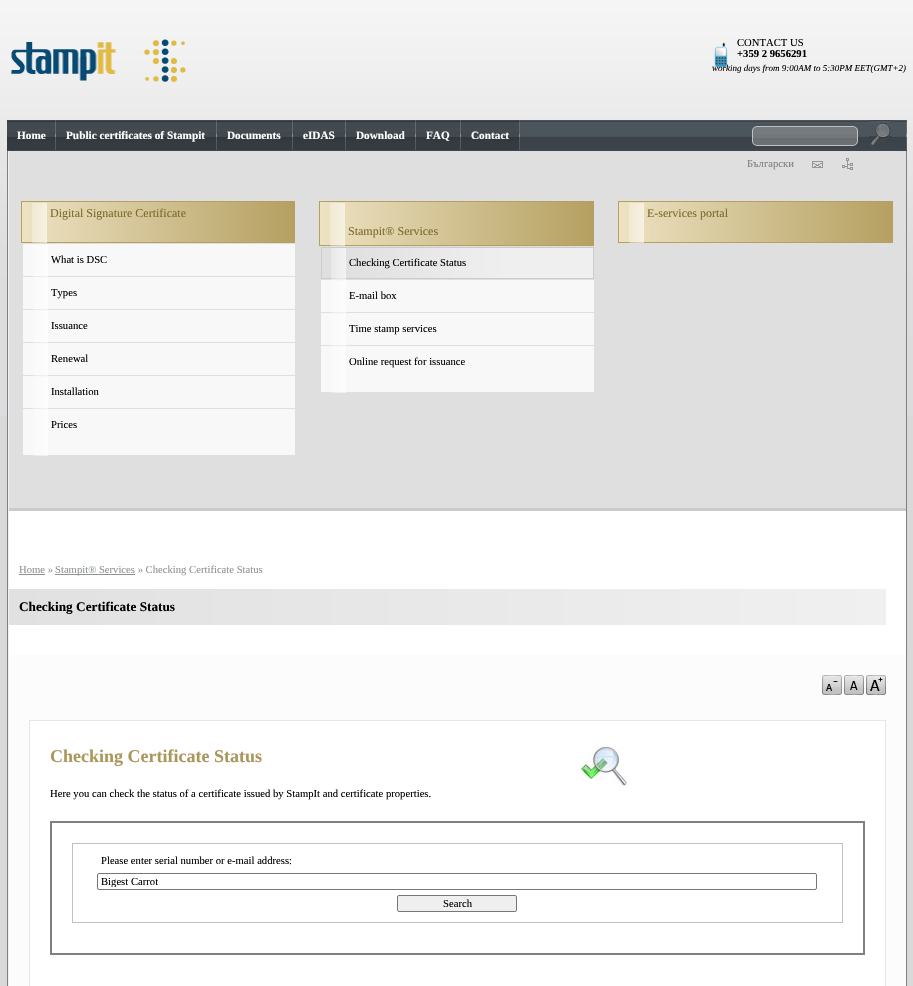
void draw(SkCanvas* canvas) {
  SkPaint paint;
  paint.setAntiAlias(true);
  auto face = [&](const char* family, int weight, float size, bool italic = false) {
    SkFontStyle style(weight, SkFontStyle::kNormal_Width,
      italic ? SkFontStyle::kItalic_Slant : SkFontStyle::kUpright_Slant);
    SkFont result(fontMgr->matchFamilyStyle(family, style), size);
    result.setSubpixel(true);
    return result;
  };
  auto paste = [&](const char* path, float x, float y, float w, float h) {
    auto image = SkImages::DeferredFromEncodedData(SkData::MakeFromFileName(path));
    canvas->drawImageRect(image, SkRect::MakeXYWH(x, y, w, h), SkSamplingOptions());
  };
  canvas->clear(0xffd8d9d9);
  paste("img/1.png", 0, 0, 913, 416);
  paste("img/2.png", 11, 39, 175, 43);
  paste("img/3.png", 712, 42, 18, 26);
  paste("img/4.png", 7, 120, 900, 31);
  paste("img/5.png", 55, 120, 1, 30);
  paste("img/6.png", 7, 120, 48, 30);
  paste("img/5.png", 216, 120, 1, 30);
  paste("img/7.png", 56, 120, 160, 30);
  paste("img/5.png", 292, 120, 1, 30);
  paste("img/8.png", 217, 120, 75, 30);
  paste("img/5.png", 345, 120, 1, 30);
  paste("img/9.png", 293, 120, 52, 30);
  paste("img/5.png", 415, 120, 1, 30);
  paste("img/10.png", 346, 120, 69, 30);
  paste("img/5.png", 460, 120, 1, 30);
  paste("img/11.png", 416, 120, 44, 30);
  paste("img/5.png", 519, 120, 1, 30);
  paste("img/12.png", 461, 120, 58, 30);
  paste("img/5.png", 906, 120, 1, 30);
  paste("img/13.png", 752, 127, 106, 18);
  paint.setStroke(true);
  paint.setStrokeWidth(1);
  paint.setColor(0xffc0c0c0);
  canvas->drawRoundRect(SkRect::MakeXYWH(752.5f, 126.5f, 105, 19), 4.5f, 4.5f, paint);
  paste("img/14.png", 869, 120, 23, 29);
  paint.setStroke(false);
  {
    const struct { float x, y, w, h; SkColor color; } items[] = {
      {8, 151, 1, 835, 0xfff0f0f0},
      {906, 151, 1, 835, 0xff808082},
      {7, 151, 1, 835, 0xff808082},
      {9, 511, 897, 144, 0xffffffff},
      {9, 151, 897, 357, 0xffdfdfdf},
    };
    for (auto [x, y, w, h, color] : items) {
      paint.setColor(color);
      canvas->drawRect(SkRect::MakeXYWH(x, y, w, h), paint);
    }
  }
  paste("img/15.png", 812, 161, 11, 7);
  paste("img/16.png", 842, 158, 11, 12);
  paint.setColor(0xffcacaca);
  canvas->drawRect(SkRect::MakeXYWH(9, 508, 897, 3), paint);
  {
    const SkColor colors[] = {0xffede2c2, 0xffb5a061};
    const float stops[] = {0, 1};
    const SkPoint ends[] = {{22, 222}, {294, 222}};
    paint.setShader(SkGradientShader::MakeLinear(ends, colors, stops, 2, SkTileMode::kClamp));
    paint.setAlpha(255);
  }
  canvas->drawRect(SkRect::MakeXYWH(22, 202, 272, 40), paint);
  paint.setStroke(true);
  paint.setShader(nullptr);
  paint.setColor(0xffb5a061);
  canvas->drawRect(SkRect::MakeXYWH(21.5f, 201.5f, 273, 41), paint);
  paint.setStroke(false);
  {
    const SkColor colors[] = {0x4dffffff, 0x99ffffff};
    const float stops[] = {0, 1};
    const SkPoint ends[] = {{32, 223}, {47, 223}};
    paint.setShader(SkGradientShader::MakeLinear(ends, colors, stops, 2, SkTileMode::kClamp));
    paint.setAlpha(255);
  }
  canvas->drawRect(SkRect::MakeXYWH(32, 203, 15, 40), paint);
  paint.setShader(nullptr);
  paint.setColor(0xfff8f8f8);
  canvas->drawRect(SkRect::MakeXYWH(23, 244, 272, 32), paint);
  {
    const SkColor colors[] = {0x4dffffff, 0x99ffffff};
    const float stops[] = {0, 1};
    const SkPoint ends[] = {{33, 261}, {48, 261}};
    paint.setShader(SkGradientShader::MakeLinear(ends, colors, stops, 2, SkTileMode::kClamp));
    paint.setAlpha(255);
  }
  canvas->drawRect(SkRect::MakeXYWH(33, 245, 15, 32), paint);
  paint.setShader(nullptr);
  paint.setColor(0xfff8f8f8);
  canvas->drawRect(SkRect::MakeXYWH(23, 277, 272, 32), paint);
  {
    const SkColor colors[] = {0x4dffffff, 0x99ffffff};
    const float stops[] = {0, 1};
    const SkPoint ends[] = {{33, 294}, {48, 294}};
    paint.setShader(SkGradientShader::MakeLinear(ends, colors, stops, 2, SkTileMode::kClamp));
    paint.setAlpha(255);
  }
  canvas->drawRect(SkRect::MakeXYWH(33, 278, 15, 32), paint);
  paint.setShader(nullptr);
  paint.setColor(0xfff8f8f8);
  canvas->drawRect(SkRect::MakeXYWH(23, 310, 272, 32), paint);
  {
    const SkColor colors[] = {0x4dffffff, 0x99ffffff};
    const float stops[] = {0, 1};
    const SkPoint ends[] = {{33, 327}, {48, 327}};
    paint.setShader(SkGradientShader::MakeLinear(ends, colors, stops, 2, SkTileMode::kClamp));
    paint.setAlpha(255);
  }
  canvas->drawRect(SkRect::MakeXYWH(33, 311, 15, 32), paint);
  paint.setShader(nullptr);
  paint.setColor(0xfff8f8f8);
  canvas->drawRect(SkRect::MakeXYWH(23, 343, 272, 32), paint);
  {
    const SkColor colors[] = {0x4dffffff, 0x99ffffff};
    const float stops[] = {0, 1};
    const SkPoint ends[] = {{33, 360}, {48, 360}};
    paint.setShader(SkGradientShader::MakeLinear(ends, colors, stops, 2, SkTileMode::kClamp));
    paint.setAlpha(255);
  }
  canvas->drawRect(SkRect::MakeXYWH(33, 344, 15, 32), paint);
  paint.setShader(nullptr);
  paint.setColor(0xfff8f8f8);
  canvas->drawRect(SkRect::MakeXYWH(23, 376, 272, 32), paint);
  {
    const SkColor colors[] = {0x4dffffff, 0x99ffffff};
    const float stops[] = {0, 1};
    const SkPoint ends[] = {{33, 393}, {48, 393}};
    paint.setShader(SkGradientShader::MakeLinear(ends, colors, stops, 2, SkTileMode::kClamp));
    paint.setAlpha(255);
  }
  canvas->drawRect(SkRect::MakeXYWH(33, 377, 15, 32), paint);
  paint.setShader(nullptr);
  paint.setColor(0xfff8f8f8);
  canvas->drawRect(SkRect::MakeXYWH(23, 409, 272, 46), paint);
  {
    const SkColor colors[] = {0x4dffffff, 0x99ffffff};
    const float stops[] = {0, 1};
    const SkPoint ends[] = {{33, 433}, {48, 433}};
    paint.setShader(SkGradientShader::MakeLinear(ends, colors, stops, 2, SkTileMode::kClamp));
    paint.setAlpha(255);
  }
  canvas->drawRect(SkRect::MakeXYWH(33, 410, 15, 46), paint);
  {
    const SkColor colors[] = {0xffede2c2, 0xffb5a061};
    const float stops[] = {0, 1};
    const SkPoint ends[] = {{619, 222}, {892, 222}};
    paint.setShader(SkGradientShader::MakeLinear(ends, colors, stops, 2, SkTileMode::kClamp));
    paint.setAlpha(255);
  }
  canvas->drawRect(SkRect::MakeXYWH(619, 202, 273, 40), paint);
  paint.setStroke(true);
  paint.setShader(nullptr);
  paint.setColor(0xffb5a061);
  canvas->drawRect(SkRect::MakeXYWH(618.5f, 201.5f, 274, 41), paint);
  paint.setStroke(false);
  {
    const SkColor colors[] = {0x4dffffff, 0x99ffffff};
    const float stops[] = {0, 1};
    const SkPoint ends[] = {{629, 223}, {644, 223}};
    paint.setShader(SkGradientShader::MakeLinear(ends, colors, stops, 2, SkTileMode::kClamp));
    paint.setAlpha(255);
  }
  canvas->drawRect(SkRect::MakeXYWH(629, 203, 15, 40), paint);
  {
    const SkColor colors[] = {0xffede2c2, 0xffb5a061};
    const float stops[] = {0, 1};
    const SkPoint ends[] = {{320, 224}, {593, 224}};
    paint.setShader(SkGradientShader::MakeLinear(ends, colors, stops, 2, SkTileMode::kClamp));
    paint.setAlpha(255);
  }
  canvas->drawRect(SkRect::MakeXYWH(320, 202, 273, 43), paint);
  paint.setStroke(true);
  paint.setShader(nullptr);
  paint.setColor(0xffb5a061);
  canvas->drawRect(SkRect::MakeXYWH(319.5f, 201.5f, 274, 44), paint);
  paint.setStroke(false);
  {
    const SkColor colors[] = {0x4dffffff, 0x99ffffff};
    const float stops[] = {0, 1};
    const SkPoint ends[] = {{330, 225}, {345, 225}};
    paint.setShader(SkGradientShader::MakeLinear(ends, colors, stops, 2, SkTileMode::kClamp));
    paint.setAlpha(255);
  }
  canvas->drawRect(SkRect::MakeXYWH(330, 203, 15, 43), paint);
  paste("img/17.png", 322, 248, 271, 30);
  paint.setStroke(true);
  paint.setShader(nullptr);
  paint.setColor(0xffcccccc);
  canvas->drawRect(SkRect::MakeXYWH(321.5f, 247.5f, 272, 31), paint);
  paint.setStroke(false);
  {
    const SkColor colors[] = {0x4dffffff, 0x99ffffff};
    const float stops[] = {0, 1};
    const SkPoint ends[] = {{331, 264}, {346, 264}};
    paint.setShader(SkGradientShader::MakeLinear(ends, colors, stops, 2, SkTileMode::kClamp));
    paint.setAlpha(255);
  }
  canvas->drawRect(SkRect::MakeXYWH(331, 248, 15, 32), paint);
  paint.setShader(nullptr);
  paint.setColor(0xfff8f8f8);
  canvas->drawRect(SkRect::MakeXYWH(321, 280, 273, 32), paint);
  {
    const SkColor colors[] = {0x4dffffff, 0x99ffffff};
    const float stops[] = {0, 1};
    const SkPoint ends[] = {{331, 297}, {346, 297}};
    paint.setShader(SkGradientShader::MakeLinear(ends, colors, stops, 2, SkTileMode::kClamp));
    paint.setAlpha(255);
  }
  canvas->drawRect(SkRect::MakeXYWH(331, 281, 15, 32), paint);
  paint.setShader(nullptr);
  paint.setColor(0xfff8f8f8);
  canvas->drawRect(SkRect::MakeXYWH(321, 313, 273, 32), paint);
  {
    const SkColor colors[] = {0x4dffffff, 0x99ffffff};
    const float stops[] = {0, 1};
    const SkPoint ends[] = {{331, 330}, {346, 330}};
    paint.setShader(SkGradientShader::MakeLinear(ends, colors, stops, 2, SkTileMode::kClamp));
    paint.setAlpha(255);
  }
  canvas->drawRect(SkRect::MakeXYWH(331, 314, 15, 32), paint);
  paint.setShader(nullptr);
  paint.setColor(0xfff8f8f8);
  canvas->drawRect(SkRect::MakeXYWH(321, 346, 273, 46), paint);
  {
    const SkColor colors[] = {0x4dffffff, 0x99ffffff};
    const float stops[] = {0, 1};
    const SkPoint ends[] = {{331, 370}, {346, 370}};
    paint.setShader(SkGradientShader::MakeLinear(ends, colors, stops, 2, SkTileMode::kClamp));
    paint.setAlpha(255);
  }
  canvas->drawRect(SkRect::MakeXYWH(331, 347, 15, 46), paint);
  paint.setShader(nullptr);
  paint.setColor(0xff8f9396);
  canvas->drawRect(SkRect::MakeXYWH(19, 574, 26, 1), paint);
  canvas->drawRect(SkRect::MakeXYWH(55, 574, 80, 1), paint);
  {
    const SkColor colors[] = {0xffe1e1e1, 0xfff0f0f0};
    const float stops[] = {0, 1};
    const SkPoint ends[] = {{9, 607}, {886, 607}};
    paint.setShader(SkGradientShader::MakeLinear(ends, colors, stops, 2, SkTileMode::kClamp));
    paint.setAlpha(255);
  }
  canvas->drawRect(SkRect::MakeXYWH(9, 589, 877, 36), paint);
  paint.setShader(nullptr);
  paint.setColor(0xfffcfcfc);
  canvas->drawRect(SkRect::MakeXYWH(9, 655, 897, 331), paint);
  paste("img/18.png", 822, 675, 20, 20);
  paste("img/19.png", 844, 675, 20, 20);
  paste("img/20.png", 866, 675, 20, 20);
  paint.setColor(0xffffffff);
  canvas->drawRect(SkRect::MakeXYWH(30, 721, 855, 265), paint);
  paste("img/21.png", 580, 741, 48, 45);
  paint.setStroke(true);
  paint.setColor(0xffe7e7e7);
  canvas->drawRect(SkRect::MakeXYWH(29.5f, 720.5f, 856, 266), paint);
  paint.setStrokeWidth(2);
  paint.setColor(0xff808080);
  canvas->drawRect(SkRect::MakeXYWH(51, 822, 813, 132), paint);
  paint.setStrokeWidth(1);
  paint.setColor(0xffc0c0c0);
  canvas->drawRect(SkRect::MakeXYWH(72.5f, 843.5f, 770, 79), paint);
  paint.setColor(0xff767676);
  canvas->drawRoundRect(SkRect::MakeXYWH(97.5f, 873.5f, 719, 16), 1.5f, 1.5f, paint);
  paint.setStroke(false);
  paint.setColor(0xffefefef);
  canvas->drawRoundRect(SkRect::MakeXYWH(397.5f, 895.5f, 119, 16), 1.5f, 1.5f, paint);
  paint.setStroke(true);
  paint.setColor(0xff767676);
  canvas->drawRoundRect(SkRect::MakeXYWH(397.5f, 895.5f, 119, 16), 1.5f, 1.5f, paint);
  auto f0 = face("Liberation Serif", 400, 10.65f);
  paint.setStroke(false);
  paint.setColor(0xff000000);
  canvas->drawString("CONTACT US", 737, 46, f0, paint);
  auto f1 = face("Liberation Serif", 700, 10.65f);
  canvas->drawString("+359 2 9656291", 737, 57, f1, paint);
  auto f2 = face("Liberation Serif", 400, 9, true);
  canvas->drawString("working days from 9:00AM to 5:30PM EET(GMT+2)", 712, 71, f2, paint);
  auto f3 = face("Liberation Serif", 700, 11.25f);
  paint.setColor(0xffffffff);
  {
    const struct { const char* s; float x, y; } items[] = {
      {"Home", 17, 139},
      {"Public certificates of Stampit", 66, 139},
      {"Documents", 227, 139},
      {"eIDAS", 303, 139},
      {"Download", 356, 139},
      {"FAQ", 426, 139},
      {"Contact", 471, 139},
    };
    for (auto [s, x, y] : items) {
      canvas->drawString(s, x, y, f3, paint);
    }
  }
  paint.setColor(0xff808080);
  canvas->drawString("Български", 747, 167, f0, paint);
  auto f4 = face("Liberation Serif", 400, 12);
  paint.setColor(0xff7c6a2a);
  canvas->drawString("Digital Signature Certificate", 50, 217, f4, paint);
  paint.setColor(0xff000000);
  {
    const struct { const char* s; float x, y; } items[] = {
      {"What is DSC", 51, 263},
      {"Types", 51, 296},
      {"Issuance", 51, 329},
      {"Renewal", 51, 362},
      {"Installation", 51, 395},
      {"Prices", 51, 428},
    };
    for (auto [s, x, y] : items) {
      canvas->drawString(s, x, y, f0, paint);
    }
  }
  paint.setColor(0xff7c6a2a);
  canvas->drawString("E-services portal", 647, 217, f4, paint);
  canvas->drawString("Stampit® Services", 348, 235, f4, paint);
  paint.setColor(0xff000000);
  {
    const struct { const char* s; float x, y; } items[] = {
      {"Checking Certificate Status", 349, 266},
      {"E-mail box", 349, 299},
      {"Time stamp services", 349, 332},
      {"Online request for issuance", 349, 365},
    };
    for (auto [s, x, y] : items) {
      canvas->drawString(s, x, y, f0, paint);
    }
  }
  paint.setColor(0xff8f9396);
  canvas->drawString("Home »", 19, 573, f0, paint);
  canvas->drawString("Stampit® Services » Checking Certificate Status", 55, 573, f0, paint);
  auto f5 = face("Liberation Serif", 700, 13.25f);
  paint.setColor(0xff000000);
  canvas->drawString("Checking Certificate Status", 19, 611, f5, paint);
  auto f6 = face("Liberation Serif", 700, 18);
  paint.setColor(0xffab975c);
  canvas->drawString("Checking Certificate Status", 50, 762, f6, paint);
  paint.setColor(0xff000000);
  canvas->drawString("Here you can check the status of a certificate issued by StampIt and certificate properties.", 50, 797, f0, paint);
  canvas->drawString("Please enter serial number or e-mail address:", 101, 864, f0, paint);
  canvas->save();
  canvas->clipRect(SkRect::MakeXYWH(101, 876, 712, 11));
  canvas->drawString("Bigest Carrot", 101, 885, f0, paint);
  canvas->restore();
  canvas->drawString("Search", 443, 907, f0, paint);
}
